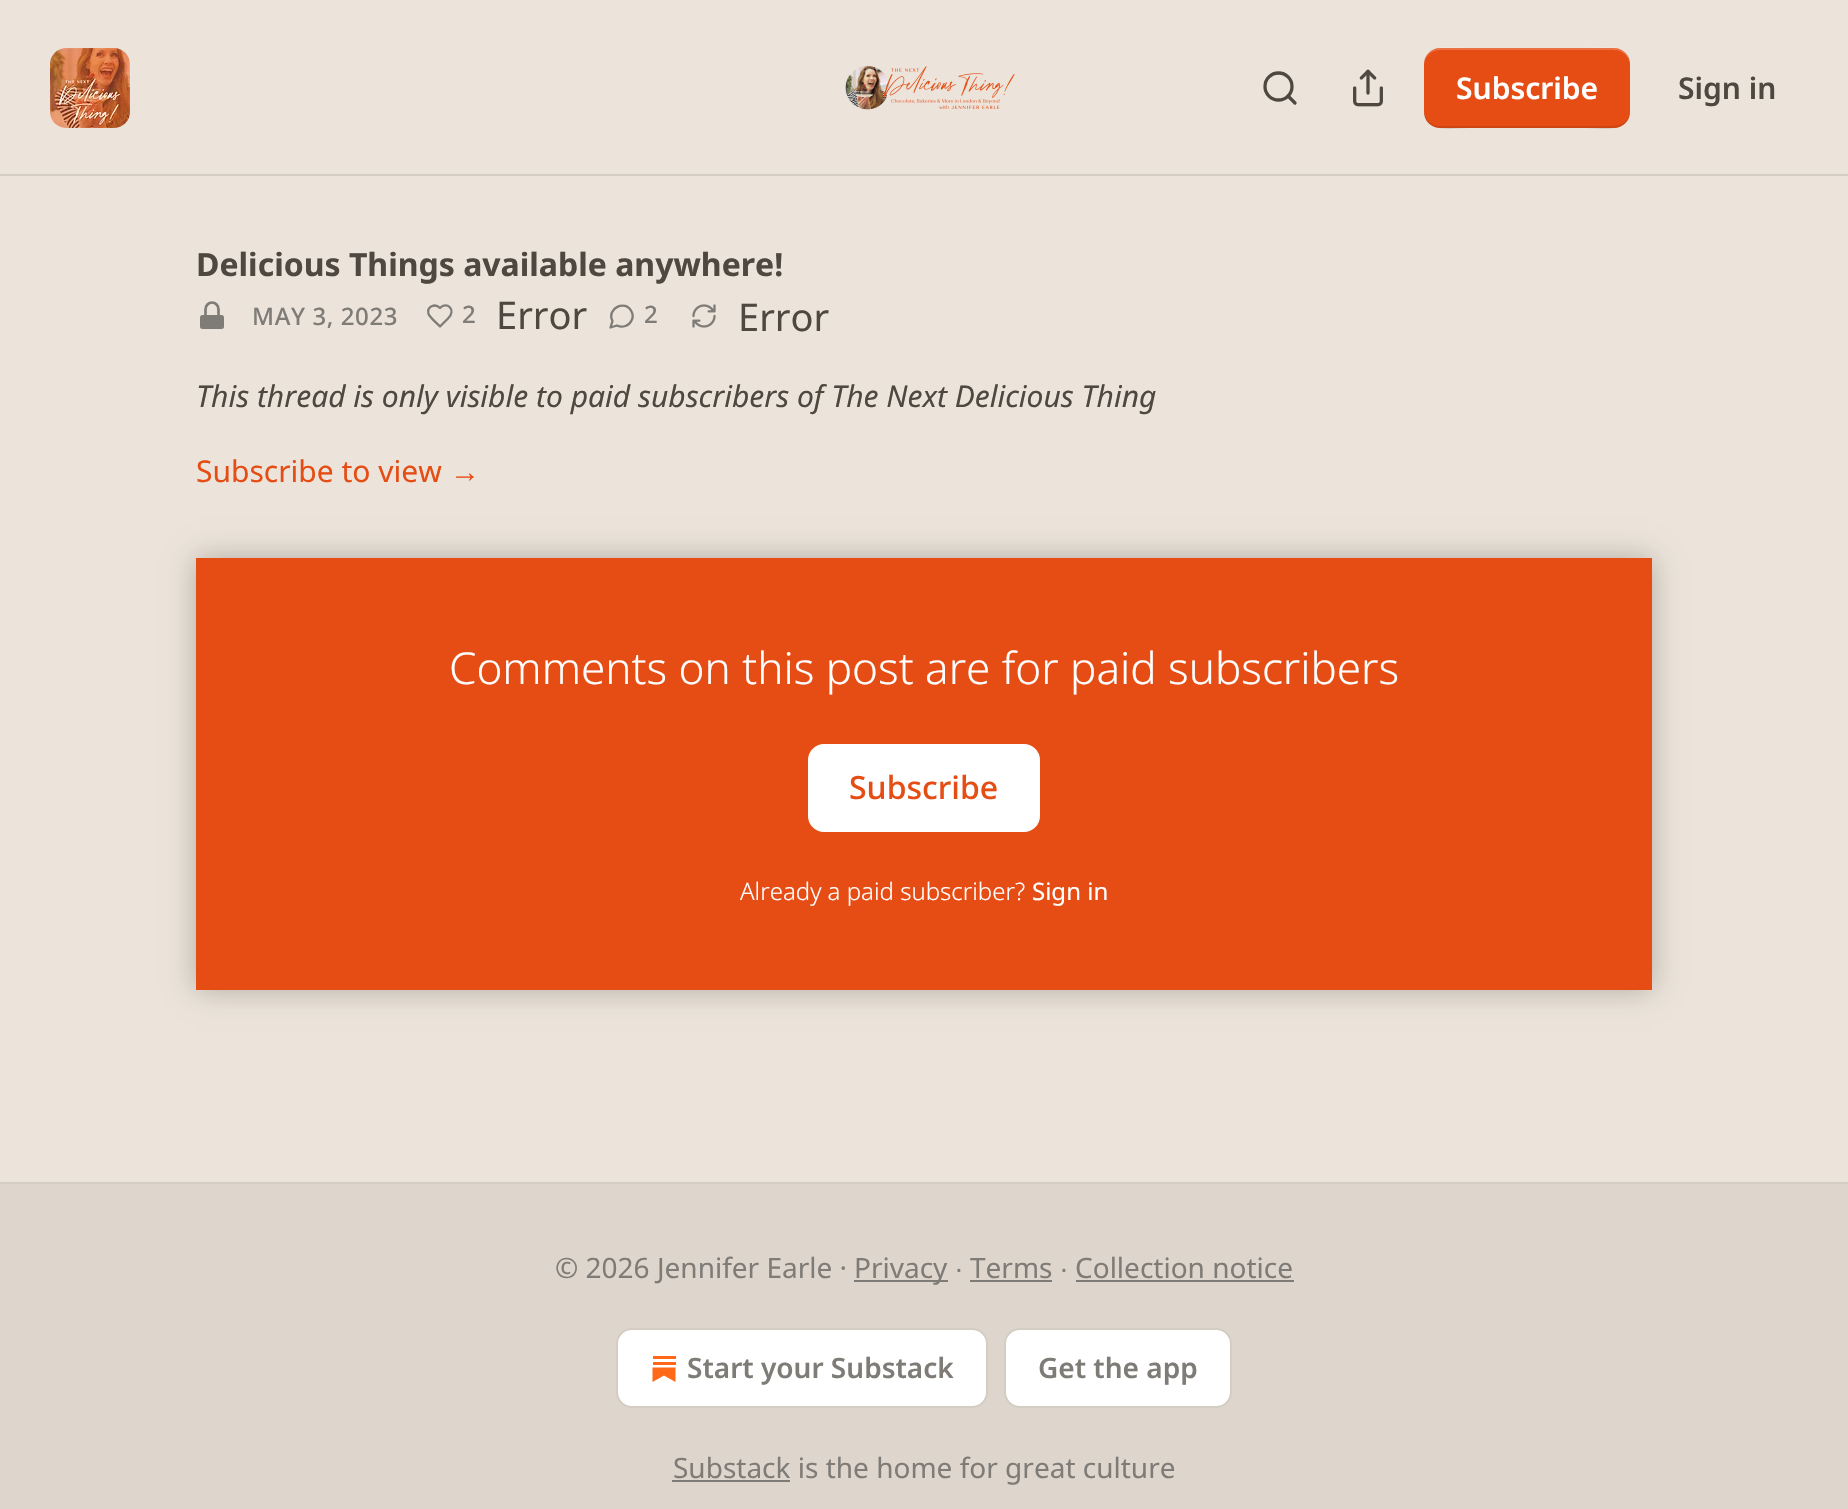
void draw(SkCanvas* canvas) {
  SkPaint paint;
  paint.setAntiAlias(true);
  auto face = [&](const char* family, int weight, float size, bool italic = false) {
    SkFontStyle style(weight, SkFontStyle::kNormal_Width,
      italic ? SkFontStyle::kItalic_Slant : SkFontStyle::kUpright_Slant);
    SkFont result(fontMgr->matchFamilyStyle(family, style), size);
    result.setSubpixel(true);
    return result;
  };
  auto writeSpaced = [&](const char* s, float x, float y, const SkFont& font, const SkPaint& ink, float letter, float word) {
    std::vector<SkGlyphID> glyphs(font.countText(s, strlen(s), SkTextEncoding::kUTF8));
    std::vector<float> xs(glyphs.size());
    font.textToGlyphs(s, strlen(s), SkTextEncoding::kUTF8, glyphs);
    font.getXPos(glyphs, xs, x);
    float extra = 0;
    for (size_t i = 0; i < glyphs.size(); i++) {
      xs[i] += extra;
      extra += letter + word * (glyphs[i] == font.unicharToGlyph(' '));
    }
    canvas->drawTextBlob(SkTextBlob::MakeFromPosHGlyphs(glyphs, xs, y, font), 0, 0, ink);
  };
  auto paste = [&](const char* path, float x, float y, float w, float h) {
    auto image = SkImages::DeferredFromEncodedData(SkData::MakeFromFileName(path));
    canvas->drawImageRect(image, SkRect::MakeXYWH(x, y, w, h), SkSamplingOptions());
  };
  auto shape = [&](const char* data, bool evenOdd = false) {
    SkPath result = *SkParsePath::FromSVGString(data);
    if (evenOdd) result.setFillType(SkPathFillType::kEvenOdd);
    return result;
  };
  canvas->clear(0xffece4da);
  paint.setColor(0xffd4cdc4);
  canvas->drawRect(SkRect::MakeXYWH(0, 174, 1848, 2), paint);
  paint.setColor(0xffffffff);
  canvas->drawRoundRect(SkRect::MakeXYWH(50, 48, 80, 80), 16, 16, paint);
  paste("img/1.png", 50, 48, 80, 80);
  paste("img/2.png", 845, 65, 170, 45);
  paint.setStroke(true);
  paint.setStrokeWidth(3.3f);
  paint.setColor(0xff4e4841);
  canvas->drawCircle(1278.5f, 86.5f, 13.5f, paint);
  paint.setStrokeCap(SkPaint::kRound_Cap);
  paint.setStrokeJoin(SkPaint::kRound_Join);
  canvas->drawPath(shape("M1295 103L1288 96"), paint);
  paste("img/3.png", 1353, 69, 30, 38);
  paint.setStroke(false);
  paint.setColor(0xffe54d15);
  canvas->drawRoundRect(SkRect::MakeXYWH(1424, 48, 206, 80), 16, 16, paint);
  paint.setColor(0x1a000000);
  canvas->drawPath(shape("M1424 110C1424 135 1453 128 1469 128H1585C1601 128 1630 135 1630 110C1630 119 1623 126 1614 126H1440C1431 126 1424 119 1424 110Z"), paint);
  paint.setColor(0x33ffffff);
  canvas->drawPath(shape("M1440 50H1614C1623 50 1630 57 1630 66C1630 41 1601 48 1585 48H1469C1453 48 1424 41 1424 66C1424 57 1431 50 1440 50Z"), paint);
  paint.setColor(0xff7f7c78);
  canvas->drawRoundRect(SkRect::MakeXYWH(200, 315, 24, 14), 2.5f, 2.5f, paint);
  paint.setStroke(true);
  paint.setStrokeWidth(2.7f);
  canvas->drawPath(shape("M205.5 314.5V309.5C205.5 305.5 208.5 302.5 212 302.5C215.5 302.5 218.5 305.5 218.5 309.5V314.5"), paint);
  paint.setStrokeWidth(2.3f);
  canvas->drawPath(shape("M448 318.5C457 309.5 446.5 301 440 308C435 303 426.5 306.5 428.5 314C430 317.5 437.5 324 440 326.5Z"), paint);
  canvas->drawPath(shape("M617 325.5C622.5 328 629 326 631.5 320.5C633 318 633 314.5 631.5 311.5C625.5 299 606 308.5 612.5 321L610.5 327.5Z"), paint);
  paste("img/4.png", 692, 304, 24, 24);
  paint.setStroke(false);
  paint.setColor(0xffe54d15);
  canvas->drawRect(SkRect::MakeXYWH(196, 558, 1456, 432), paint);
  paint.setColor(0xffffffff);
  canvas->drawRoundRect(SkRect::MakeXYWH(809, 745, 230, 86), 15, 15, paint);
  paint.setStroke(true);
  paint.setStrokeWidth(2);
  paint.setStrokeCap(SkPaint::kButt_Cap);
  paint.setStrokeJoin(SkPaint::kMiter_Join);
  canvas->drawRoundRect(SkRect::MakeXYWH(809, 745, 230, 86), 15, 15, paint);
  canvas->save();
  canvas->clipPath(shape("M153 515H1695V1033H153ZM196 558H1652V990H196Z", true), true);
  paint.setStroke(false);
  paint.setColor(0x40000000);
  paint.setMaskFilter(SkMaskFilter::MakeBlur(kNormal_SkBlurStyle, 14));
  canvas->drawRect(SkRect::MakeXYWH(196, 558, 1456, 432), paint);
  paint.setMaskFilter(nullptr);
  canvas->restore();
  {
    const struct { float x, y, w, h; SkColor color; } items[] = {
      {0, 1184, 1848, 325, 0xffded6cd},
      {0, 1182, 1848, 2, 0xffd4cdc4},
      {854, 1280, 94, 2, 0xff7f7c78},
      {970, 1280, 82, 2, 0xff7f7c78},
      {1076, 1280, 218, 2, 0xff7f7c78},
    };
    for (auto [x, y, w, h, color] : items) {
      paint.setColor(color);
      canvas->drawRect(SkRect::MakeXYWH(x, y, w, h), paint);
    }
  }
  paint.setColor(0xffffffff);
  canvas->drawRoundRect(SkRect::MakeXYWH(617, 1329, 370, 78), 15, 15, paint);
  paint.setStroke(true);
  paint.setColor(0xffd4cdc4);
  canvas->drawRoundRect(SkRect::MakeXYWH(617, 1329, 370, 78), 15, 15, paint);
  paint.setStroke(false);
  paint.setColor(0xffff6719);
  canvas->drawRect(SkRect::MakeXYWH(653, 1362, 23, 3), paint);
  canvas->drawPath(shape("M652.5 1367.5V1382L664 1375.5L675.5 1382V1367.5Z"), paint);
  canvas->drawRect(SkRect::MakeXYWH(653, 1356, 23, 3), paint);
  paint.setColor(0xffffffff);
  canvas->drawRoundRect(SkRect::MakeXYWH(1005, 1329, 226, 78), 15, 15, paint);
  paint.setStroke(true);
  paint.setColor(0xffd4cdc4);
  canvas->drawRoundRect(SkRect::MakeXYWH(1005, 1329, 226, 78), 15, 15, paint);
  paint.setStroke(false);
  paint.setColor(0xff7f7c78);
  canvas->drawRect(SkRect::MakeXYWH(672, 1480, 118, 2), paint);
  auto f0 = face("Noto Sans", 600, 30);
  paint.setColor(0xffffffff);
  canvas->drawString("Subscribe", 1456, 99, f0, paint);
  paint.setColor(0xff4e4841);
  canvas->drawString("Sign in", 1678, 99, f0, paint);
  auto f1 = face("Noto Sans", 700, 32);
  canvas->drawString("Delicious Things available anywhere!", 196, 276, f1, paint);
  auto f2 = face("Noto Sans", 500, 24);
  paint.setColor(0xff7f7c78);
  writeSpaced("MAY 3, 2023", 252, 325, f2, paint, 0.6f, 0);
  writeSpaced("2", 462, 323, f2, paint, 0.6f, 0);
  auto f3 = face("Noto Sans", 400, 38);
  paint.setColor(0xff4e4841);
  canvas->drawString("Error", 496, 329, f3, paint);
  paint.setColor(0xff7f7c78);
  writeSpaced("2", 644, 323, f2, paint, 0.6f, 0);
  paint.setColor(0xff4e4841);
  canvas->drawString("Error", 738, 331, f3, paint);
  auto f4 = face("Noto Sans", 400, 30, true);
  canvas->drawString("This thread is only visible to paid subscribers of The Next Delicious Thing", 196, 407, f4, paint);
  auto f5 = face("Noto Sans", 400, 30);
  paint.setColor(0xffe54d15);
  canvas->drawString("Subscribe to view", 196, 482, f5, paint);
  auto f6 = face("Liberation Sans", 400, 30);
  canvas->drawString("→", 450, 482, f6, paint);
  auto f7 = face("Noto Sans", 300, 44);
  paint.setColor(0xffffffff);
  canvas->drawString("Comments on this post are for paid subscribers", 449, 684, f7, paint);
  auto f8 = face("Noto Sans", 500, 32);
  paint.setColor(0xffe54d15);
  canvas->drawString("Subscribe", 849, 799, f8, paint);
  auto f9 = face("Noto Sans", 300, 24);
  paint.setColor(0xffffffff);
  canvas->drawString("Already a paid subscriber?", 740, 900, f9, paint);
  auto f10 = face("Noto Sans", 400, 24);
  canvas->drawString("Sign in", 1032, 900, f10, paint);
  auto f11 = face("Noto Sans", 400, 28);
  paint.setColor(0xff7f7c78);
  canvas->drawString("© 2026 Jennifer Earle ·", 555, 1278, f11, paint);
  canvas->drawString("Privacy", 854, 1278, f11, paint);
  auto f12 = face("Liberation Sans", 400, 28);
  canvas->drawString("∙", 955, 1278, f12, paint);
  canvas->drawString("Terms", 970, 1278, f11, paint);
  canvas->drawString("∙", 1060, 1278, f12, paint);
  canvas->drawString("Collection notice", 1075, 1278, f11, paint);
  auto f13 = face("Noto Sans", 600, 28);
  canvas->drawString("Start your Substack", 687, 1378, f13, paint);
  canvas->drawString("Get the app", 1038, 1378, f13, paint);
  canvas->drawString("Substack is the home for great culture", 673, 1478, f11, paint);
}
